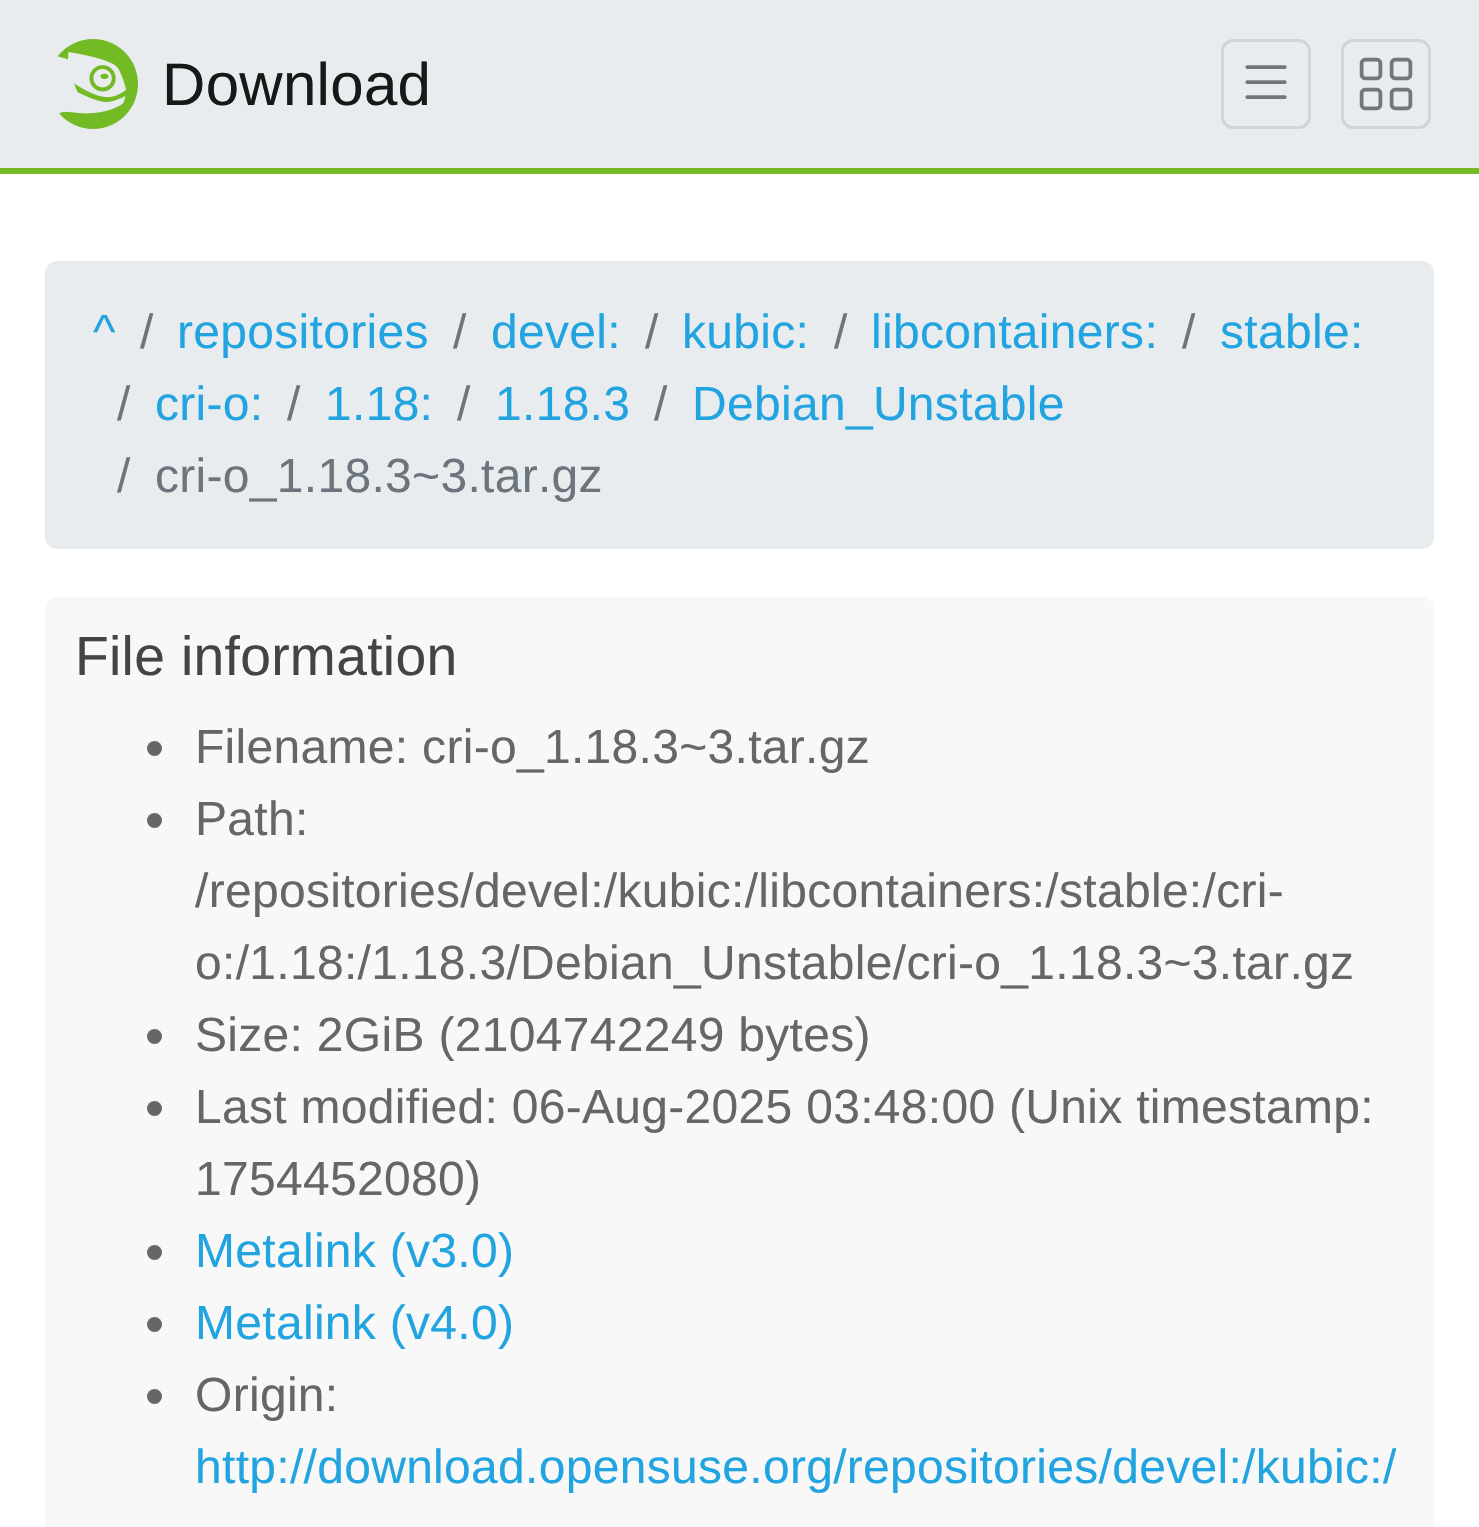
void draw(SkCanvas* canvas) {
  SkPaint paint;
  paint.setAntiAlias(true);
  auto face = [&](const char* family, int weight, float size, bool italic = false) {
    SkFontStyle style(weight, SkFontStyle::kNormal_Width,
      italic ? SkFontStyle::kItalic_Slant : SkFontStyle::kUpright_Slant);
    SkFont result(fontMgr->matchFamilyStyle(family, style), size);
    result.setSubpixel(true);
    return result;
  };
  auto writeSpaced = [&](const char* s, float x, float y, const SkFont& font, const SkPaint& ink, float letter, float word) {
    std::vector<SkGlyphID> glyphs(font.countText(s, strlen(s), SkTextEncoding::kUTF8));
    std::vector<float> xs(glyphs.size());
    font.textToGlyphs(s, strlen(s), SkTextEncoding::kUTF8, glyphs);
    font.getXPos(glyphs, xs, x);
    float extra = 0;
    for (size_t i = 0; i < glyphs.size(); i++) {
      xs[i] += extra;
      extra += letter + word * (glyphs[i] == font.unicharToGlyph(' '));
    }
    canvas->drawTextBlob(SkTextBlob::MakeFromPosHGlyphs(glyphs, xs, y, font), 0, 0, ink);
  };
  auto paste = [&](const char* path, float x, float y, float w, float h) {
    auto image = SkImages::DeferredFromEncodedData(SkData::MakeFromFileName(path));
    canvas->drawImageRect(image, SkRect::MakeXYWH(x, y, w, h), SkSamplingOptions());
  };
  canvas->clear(0xffffffff);
  paint.setColor(0xffe9ecef);
  canvas->drawRect(SkRect::MakeXYWH(0, 0, 1479, 168), paint);
  paint.setColor(0xff73ba25);
  canvas->drawRect(SkRect::MakeXYWH(0, 168, 1479, 6), paint);
  paste("img/1.png", 57, 39, 81, 90);
  paint.setStroke(true);
  paint.setStrokeWidth(3);
  paint.setColor(0xffd2d4d7);
  canvas->drawRoundRect(SkRect::MakeXYWH(1222.5f, 40.5f, 87, 87), 10.5f, 10.5f, paint);
  paste("img/2.png", 1245, 65, 42, 34);
  canvas->drawRoundRect(SkRect::MakeXYWH(1342.5f, 40.5f, 87, 87), 10.5f, 10.5f, paint);
  paste("img/3.png", 1359, 57, 54, 54);
  paint.setStroke(false);
  paint.setColor(0xffe9ecef);
  canvas->drawRoundRect(SkRect::MakeXYWH(45, 261, 1389, 288), 12, 12, paint);
  paint.setColor(0xfff8f8f8);
  canvas->drawRoundRect(SkRect::MakeXYWH(45, 597, 1389, 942), 12, 12, paint);
  paint.setColor(0xff666666);
  canvas->drawCircle(154.5f, 748.5f, 7.5f, paint);
  canvas->drawCircle(154.5f, 820.5f, 7.5f, paint);
  canvas->drawCircle(154.5f, 1036.5f, 7.5f, paint);
  canvas->drawCircle(154.5f, 1108.5f, 7.5f, paint);
  canvas->drawCircle(154.5f, 1252.5f, 7.5f, paint);
  canvas->drawCircle(154.5f, 1324.5f, 7.5f, paint);
  canvas->drawCircle(154.5f, 1396.5f, 7.5f, paint);
  auto f0 = face("Liberation Sans", 400, 60);
  paint.setColor(0xff171818);
  writeSpaced("Download", 162, 105, f0, paint, 0.3f, 0);
  auto f1 = face("Liberation Sans", 400, 48);
  paint.setColor(0xff21a4df);
  writeSpaced("^", 93, 348, f1, paint, 0.3f, 0);
  paint.setColor(0xff6c757d);
  writeSpaced("/", 140, 348, f1, paint, 0.3f, 0);
  paint.setColor(0xff21a4df);
  writeSpaced("repositories", 177, 348, f1, paint, 0.3f, 0);
  paint.setColor(0xff6c757d);
  writeSpaced("/", 453, 348, f1, paint, 0.3f, 0);
  paint.setColor(0xff21a4df);
  writeSpaced("devel:", 491, 348, f1, paint, 0.3f, 0);
  paint.setColor(0xff6c757d);
  writeSpaced("/", 645, 348, f1, paint, 0.3f, 0);
  paint.setColor(0xff21a4df);
  writeSpaced("kubic:", 682, 348, f1, paint, 0.3f, 0);
  paint.setColor(0xff6c757d);
  writeSpaced("/", 834, 348, f1, paint, 0.3f, 0);
  paint.setColor(0xff21a4df);
  writeSpaced("libcontainers:", 871, 348, f1, paint, 0.3f, 0);
  paint.setColor(0xff6c757d);
  writeSpaced("/", 1182, 348, f1, paint, 0.3f, 0);
  paint.setColor(0xff21a4df);
  writeSpaced("stable:", 1220, 348, f1, paint, 0.3f, 0);
  paint.setColor(0xff6c757d);
  writeSpaced("/", 117, 420, f1, paint, 0.3f, 0);
  paint.setColor(0xff21a4df);
  writeSpaced("cri-o:", 155, 420, f1, paint, 0.3f, 0);
  paint.setColor(0xff6c757d);
  writeSpaced("/", 287, 420, f1, paint, 0.3f, 0);
  paint.setColor(0xff21a4df);
  writeSpaced("1.18:", 325, 420, f1, paint, 0.3f, 0);
  paint.setColor(0xff6c757d);
  writeSpaced("/", 457, 420, f1, paint, 0.3f, 0);
  paint.setColor(0xff21a4df);
  writeSpaced("1.18.3", 495, 420, f1, paint, 0.3f, 0);
  paint.setColor(0xff6c757d);
  writeSpaced("/", 654, 420, f1, paint, 0.3f, 0);
  paint.setColor(0xff21a4df);
  writeSpaced("Debian_Unstable", 692, 420, f1, paint, 0.3f, 0);
  paint.setColor(0xff6c757d);
  writeSpaced("/", 117, 492, f1, paint, 0.3f, 0);
  writeSpaced("cri-o_1.18.3~3.tar.gz", 155, 492, f1, paint, 0.3f, 0);
  auto f2 = face("Liberation Sans", 400, 55.25f);
  paint.setColor(0xff444444);
  writeSpaced("File information", 75, 675, f2, paint, 0.3f, 0);
  paint.setColor(0xff666666);
  {
    const struct { const char* s; float x, y; } items[] = {
      {"Filename: cri-o_1.18.3~3.tar.gz", 195, 763},
      {"Path:", 195, 835},
      {"/repositories/devel:/kubic:/libcontainers:/stable:/cri-", 195, 907},
      {"o:/1.18:/1.18.3/Debian_Unstable/cri-o_1.18.3~3.tar.gz", 195, 979},
      {"Size: 2GiB (2104742249 bytes)", 195, 1051},
      {"Last modified: 06-Aug-2025 03:48:00 (Unix timestamp:", 195, 1123},
      {"1754452080)", 195, 1195},
    };
    for (auto [s, x, y] : items) {
      writeSpaced(s, x, y, f1, paint, 0.3f, 0);
    }
  }
  paint.setColor(0xff21a4df);
  writeSpaced("Metalink (v3.0)", 195, 1267, f1, paint, 0.3f, 0);
  writeSpaced("Metalink (v4.0)", 195, 1339, f1, paint, 0.3f, 0);
  paint.setColor(0xff666666);
  writeSpaced("Origin:", 195, 1411, f1, paint, 0.3f, 0);
  paint.setColor(0xff21a4df);
  writeSpaced("http://download.opensuse.org/repositories/devel:/kubic:/", 195, 1483, f1, paint, 0.3f, 0);
}
